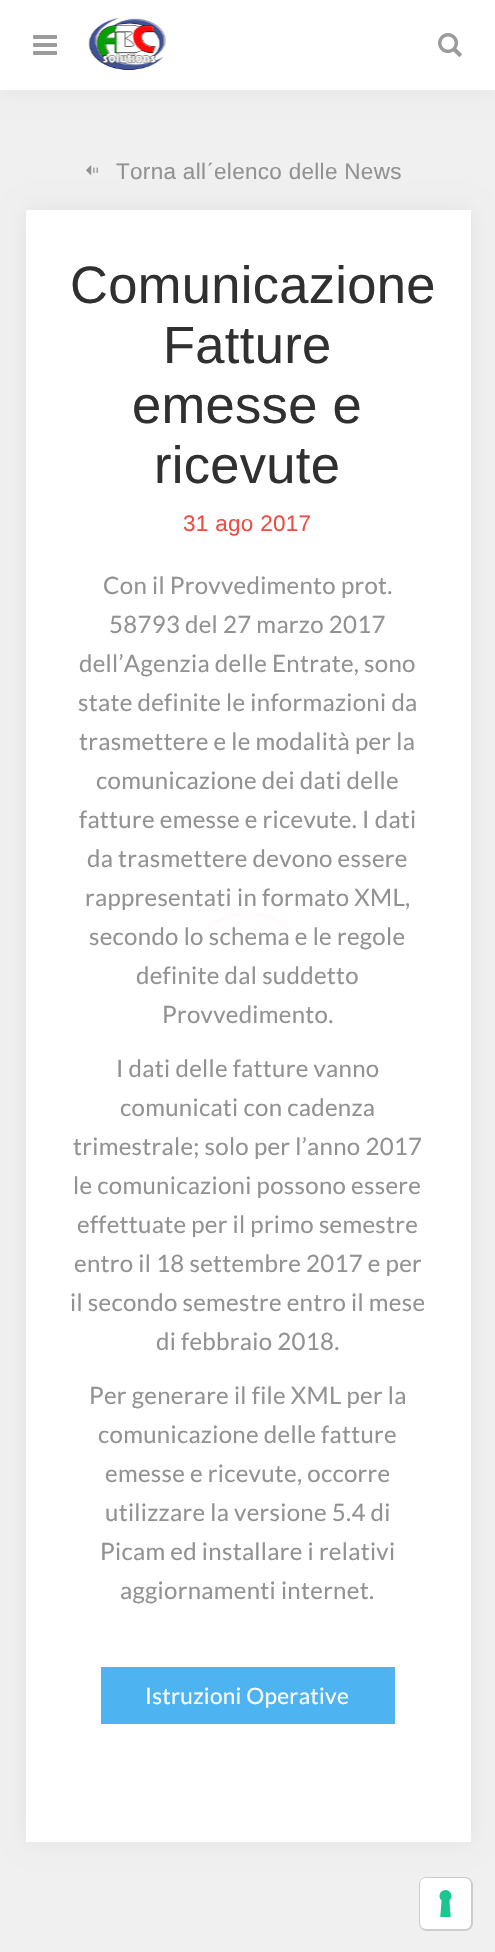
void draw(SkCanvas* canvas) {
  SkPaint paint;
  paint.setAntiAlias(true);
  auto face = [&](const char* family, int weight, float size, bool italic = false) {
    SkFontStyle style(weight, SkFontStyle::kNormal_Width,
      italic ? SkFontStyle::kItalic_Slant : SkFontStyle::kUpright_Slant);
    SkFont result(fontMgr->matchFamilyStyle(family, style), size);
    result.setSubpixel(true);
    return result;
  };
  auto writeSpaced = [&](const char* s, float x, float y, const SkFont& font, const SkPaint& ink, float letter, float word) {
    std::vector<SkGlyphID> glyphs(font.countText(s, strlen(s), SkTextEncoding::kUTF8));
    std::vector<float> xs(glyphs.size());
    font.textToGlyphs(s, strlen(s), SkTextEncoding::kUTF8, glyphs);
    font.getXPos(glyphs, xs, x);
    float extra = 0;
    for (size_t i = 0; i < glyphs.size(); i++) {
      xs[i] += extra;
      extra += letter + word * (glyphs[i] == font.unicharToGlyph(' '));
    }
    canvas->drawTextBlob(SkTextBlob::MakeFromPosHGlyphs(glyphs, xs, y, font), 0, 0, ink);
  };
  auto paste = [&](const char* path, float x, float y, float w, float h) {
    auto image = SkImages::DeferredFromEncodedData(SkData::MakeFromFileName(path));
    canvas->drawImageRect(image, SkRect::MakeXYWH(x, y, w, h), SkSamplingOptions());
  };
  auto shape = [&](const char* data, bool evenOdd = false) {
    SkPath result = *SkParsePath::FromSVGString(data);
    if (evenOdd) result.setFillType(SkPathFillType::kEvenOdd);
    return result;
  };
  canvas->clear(0xfff0f0f0);
  paint.setColor(0x0f050505);
  paint.setMaskFilter(SkMaskFilter::MakeBlur(kNormal_SkBlurStyle, 10.5f));
  canvas->drawRect(SkRect::MakeXYWH(0, 0, 495, 90), paint);
  paint.setMaskFilter(nullptr);
  paint.setColor(0xffffffff);
  canvas->drawRect(SkRect::MakeXYWH(0, 0, 495, 90), paint);
  paste("img/1.png", 33, 35, 24, 20);
  paste("img/2.png", 88, 18, 78, 53);
  paste("img/3.png", 438, 33, 24, 24);
  paint.setColor(0x0f050505);
  paint.setMaskFilter(SkMaskFilter::MakeBlur(kNormal_SkBlurStyle, 10.5f));
  canvas->drawRect(SkRect::MakeXYWH(26, 210, 445, 1632), paint);
  paint.setMaskFilter(nullptr);
  paint.setColor(0xffffffff);
  canvas->drawRect(SkRect::MakeXYWH(26, 210, 445, 1632), paint);
  paste("img/4.png", 86, 165, 12, 11);
  paint.setColor(0xff4eb4f1);
  canvas->drawRect(SkRect::MakeXYWH(101, 1667, 294, 57), paint);
  paint.setStroke(true);
  paint.setStrokeWidth(2);
  paint.setColor(0xffcccccc);
  canvas->drawRoundRect(SkRect::MakeXYWH(420, 1878, 52, 52), 7, 7, paint);
  paint.setStroke(false);
  paint.setColor(0xffffffff);
  canvas->drawRoundRect(SkRect::MakeXYWH(420, 1878, 51, 51), 6, 6, paint);
  paste("img/5.png", 439, 1890, 13, 27);
  auto f0 = face("Liberation Sans", 400, 22.5f);
  paint.setColor(0xff929292);
  writeSpaced("Torna allˊelenco delle News", 116, 179, f0, paint, 0.3f, 0);
  auto f1 = face("Liberation Sans", 400, 52.5f);
  paint.setColor(0xff303030);
  {
    const struct { const char* s; float x, y; } items[] = {
      {"Comunicazione", 70, 303},
      {"Fatture", 163, 363},
      {"emesse e", 132, 423},
      {"ricevute", 154, 483},
    };
    for (auto [s, x, y] : items) {
      writeSpaced(s, x, y, f1, paint, 0.3f, 0);
    }
  }
  paint.setColor(0xfff04c42);
  writeSpaced("31 ago 2017", 183, 531, f0, paint, 0.3f, 0);
  auto f2 = face("Lato", 400, 24);
  paint.setColor(0xff929292);
  {
    const struct { const char* s; float x, y; } items[] = {
      {"Con il Provvedimento prot.", 103, 594},
      {"58793 del 27 marzo 2017", 109, 633},
      {"dell’Agenzia delle Entrate, sono", 79, 672},
      {"state definite le informazioni da", 78, 711},
      {"trasmettere e le modalità per la", 79, 750},
      {"comunicazione dei dati delle", 96, 789},
      {"fatture emesse e ricevute. I dati", 79, 828},
      {"da trasmettere devono essere", 87, 867},
      {"rappresentati in formato XML,", 85, 906},
      {"secondo lo schema e le regole", 89, 945},
      {"definite dal suddetto", 136, 984},
      {"Provvedimento.", 162, 1023},
      {"I dati delle fatture vanno", 116, 1077},
      {"comunicati con cadenza", 120, 1116},
      {"trimestrale; solo per l’anno 2017", 73, 1155},
      {"le comunicazioni possono essere", 73, 1194},
      {"effettuate per il primo semestre", 77, 1233},
      {"entro il 18 settembre 2017 e per", 74, 1272},
      {"il secondo semestre entro il mese", 70, 1311},
      {"di febbraio 2018.", 156, 1350},
      {"Per generare il file XML per la", 89, 1404},
      {"comunicazione delle fatture", 98, 1443},
      {"emesse e ricevute, occorre", 105, 1482},
      {"utilizzare la versione 5.4 di", 105, 1521},
      {"Picam ed installare i relativi", 100, 1560},
      {"aggiornamenti internet.", 120, 1599},
    };
    for (auto [s, x, y] : items) {
      writeSpaced(s, x, y, f2, paint, 0.3f, 0);
    }
  }
  auto f3 = face("Lato", 400, 22.5f);
  paint.setColor(0xffffffff);
  writeSpaced("Istruzioni Operative", 145, 1704, f3, paint, 0.3f, 0);
  paint.setStroke(true);
  paint.setStrokeWidth(3);
  paint.setColor(0xfffffbfb);
  canvas->drawPath(shape("M203 932C227 907.5 268 907.5 292 932"), paint);
}
